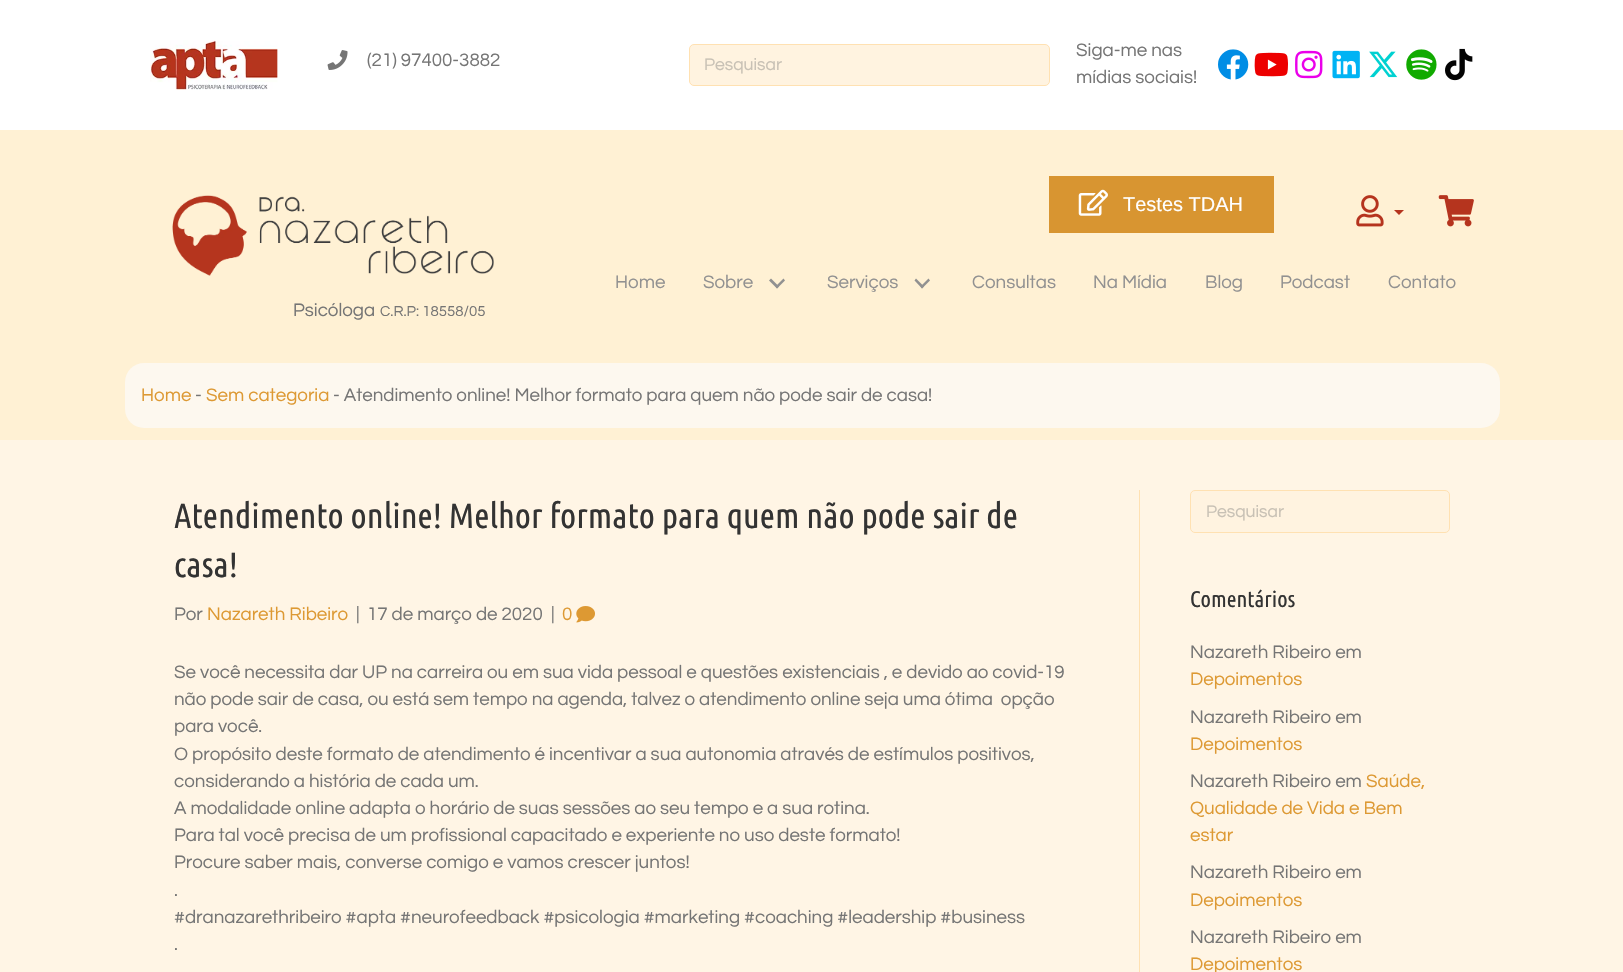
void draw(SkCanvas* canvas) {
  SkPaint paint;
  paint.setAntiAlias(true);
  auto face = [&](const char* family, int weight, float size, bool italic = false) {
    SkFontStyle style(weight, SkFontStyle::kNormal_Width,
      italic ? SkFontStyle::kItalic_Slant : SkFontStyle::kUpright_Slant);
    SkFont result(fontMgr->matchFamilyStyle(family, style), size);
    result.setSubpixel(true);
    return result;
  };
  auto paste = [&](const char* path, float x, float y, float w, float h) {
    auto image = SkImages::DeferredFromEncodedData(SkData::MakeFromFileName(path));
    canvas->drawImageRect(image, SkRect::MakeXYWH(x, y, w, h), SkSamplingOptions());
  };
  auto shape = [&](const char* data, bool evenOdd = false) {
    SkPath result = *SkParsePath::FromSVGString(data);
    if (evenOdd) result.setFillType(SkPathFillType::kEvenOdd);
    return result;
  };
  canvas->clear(0xfffff5e5);
  paint.setColor(0xffffffff);
  canvas->drawRect(SkRect::MakeXYWH(0, 0, 1623, 130), paint);
  paste("img/1.png", 150, 40, 128, 50);
  paste("img/2.png", 327, 50, 21, 20);
  paint.setColor(0xfffff3e0);
  canvas->drawRoundRect(SkRect::MakeXYWH(689.5f, 44.5f, 360, 41), 4.5f, 4.5f, paint);
  paint.setStroke(true);
  paint.setStrokeWidth(1);
  paint.setColor(0xffffe1b2);
  canvas->drawRoundRect(SkRect::MakeXYWH(689.5f, 44.5f, 360, 41), 4.5f, 4.5f, paint);
  paste("img/3.png", 1218, 49, 31, 31);
  paste("img/4.png", 1254, 52, 34, 25);
  paste("img/5.png", 1295, 50, 28, 29);
  paste("img/6.png", 1332, 50, 28, 29);
  paste("img/7.png", 1369, 51, 29, 27);
  paste("img/8.png", 1406, 49, 31, 31);
  paste("img/9.png", 1445, 48, 28, 33);
  paint.setStroke(false);
  paint.setColor(0xfffff1d4);
  canvas->drawRect(SkRect::MakeXYWH(0, 130, 1623, 310), paint);
  paint.setColor(0xffd89531);
  canvas->drawRect(SkRect::MakeXYWH(1049, 176, 225, 57), paint);
  paste("img/10.png", 1078, 189, 30, 27);
  paste("img/11.png", 1356, 195, 28, 32);
  paint.setColor(0xffb5341e);
  canvas->drawPath(shape("M1394 210H1404L1399 215Z"), paint);
  paste("img/12.png", 1438, 195, 36, 32);
  paint.setColor(0xff919191);
  canvas->drawPath(shape("M783.5 278.5L785 280.5L777 288.5L775.5 286.5Z"), paint);
  canvas->drawPath(shape("M771 278.5L779 286.5L777 288.5L769 280.5Z"), paint);
  canvas->drawPath(shape("M928.5 278.5L930 280.5L922 288.5L920.5 286.5Z"), paint);
  canvas->drawPath(shape("M916 278.5L924 286.5L922 288.5L914.5 280.5Z"), paint);
  paste("img/13.png", 172, 195, 322, 81);
  paint.setColor(0xfffdf8ef);
  canvas->drawRoundRect(SkRect::MakeXYWH(125, 363, 1375, 65), 19, 19, paint);
  paint.setColor(0xffffe1b2);
  canvas->drawRect(SkRect::MakeXYWH(1139, 490, 1, 482), paint);
  paste("img/14.png", 576, 606, 19, 17);
  paint.setColor(0xfffff3e0);
  canvas->drawRoundRect(SkRect::MakeXYWH(1190.5f, 490.5f, 259, 42), 4.5f, 4.5f, paint);
  paint.setStroke(true);
  paint.setColor(0xffffe1b2);
  canvas->drawRoundRect(SkRect::MakeXYWH(1190.5f, 490.5f, 259, 42), 4.5f, 4.5f, paint);
  auto f0 = face("Questrial", 400, 18.75f);
  paint.setStroke(false);
  paint.setColor(0xff757575);
  canvas->drawString("(21) 97400-3882", 367, 66, f0, paint);
  auto f1 = face("Questrial", 400, 17.5f);
  paint.setColor(0xffc8c1b5);
  canvas->drawString("Pesquisar", 704, 70, f1, paint);
  paint.setColor(0xff757575);
  canvas->drawString("Siga-me nas", 1076, 56, f0, paint);
  canvas->drawString("mídias sociais!", 1076, 83, f0, paint);
  auto f2 = face("Liberation Sans", 400, 20);
  paint.setColor(0xffffffff);
  canvas->drawString("Testes TDAH", 1123, 211, f2, paint);
  paint.setColor(0xff919191);
  {
    const struct { const char* s; float x, y; } items[] = {
      {"Home", 615, 288},
      {"Sobre", 703, 288},
      {"Serviços", 827, 288},
      {"Consultas", 972, 288},
      {"Na Mídia", 1093, 288},
      {"Blog", 1205, 288},
      {"Podcast", 1280, 288},
      {"Contato", 1388, 288},
    };
    for (auto [s, x, y] : items) {
      canvas->drawString(s, x, y, f0, paint);
    }
  }
  paint.setColor(0xff757575);
  canvas->drawString("Psicóloga", 293, 316, f0, paint);
  auto f3 = face("Questrial", 400, 15);
  canvas->drawString("C.R.P: 18558/05", 380, 316, f3, paint);
  paint.setColor(0xffdd9933);
  canvas->drawString("Home", 141, 401, f0, paint);
  paint.setColor(0xff757575);
  canvas->drawString("-", 195, 401, f0, paint);
  paint.setColor(0xffdd9933);
  canvas->drawString("Sem categoria", 206, 401, f0, paint);
  paint.setColor(0xff757575);
  canvas->drawString("- Atendimento online! Melhor formato para quem não pode sair de casa!", 333, 401, f0, paint);
  auto f4 = face("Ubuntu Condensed", 400, 35);
  paint.setColor(0xff333333);
  canvas->drawString("Atendimento online! Melhor formato para quem não pode sair de", 174, 528, f4, paint);
  canvas->drawString("casa!", 174, 577, f4, paint);
  paint.setColor(0xff757575);
  canvas->drawString("Por", 174, 620, f0, paint);
  paint.setColor(0xffdd9933);
  canvas->drawString("Nazareth Ribeiro", 207, 620, f0, paint);
  paint.setColor(0xff757575);
  {
    const struct { const char* s; float x, y; } items[] = {
      {"|", 356, 620},
      {"17 de março de 2020", 367, 620},
      {"|", 551, 620},
    };
    for (auto [s, x, y] : items) {
      canvas->drawString(s, x, y, f0, paint);
    }
  }
  paint.setColor(0xffdd9933);
  canvas->drawString("0", 562, 620, f0, paint);
  paint.setColor(0xff757575);
  {
    const struct { const char* s; float x, y; } items[] = {
      {"Se você necessita dar UP na carreira ou em sua vida pessoal e questões existenciais , e devido ao covid-19", 174, 678},
      {"não pode sair de casa, ou está sem tempo na agenda, talvez o atendimento online seja uma ótima  opção", 174, 705},
      {"para você.", 174, 732},
      {"O propósito deste formato de atendimento é incentivar a sua autonomia através de estímulos positivos,", 174, 760},
      {"considerando a história de cada um.", 174, 787},
      {"A modalidade online adapta o horário de suas sessões ao seu tempo e a sua rotina.", 174, 814},
      {"Para tal você precisa de um profissional capacitado e experiente no uso deste formato!", 174, 841},
      {"Procure saber mais, converse comigo e vamos crescer juntos!", 174, 868},
      {".", 174, 896},
      {"#dranazarethribeiro #apta #neurofeedback #psicologia #marketing #coaching #leadership #business", 174, 923},
      {".", 174, 950},
    };
    for (auto [s, x, y] : items) {
      canvas->drawString(s, x, y, f0, paint);
    }
  }
  paint.setColor(0xffc8c1b5);
  canvas->drawString("Pesquisar", 1206, 517, f1, paint);
  auto f5 = face("Ubuntu Condensed", 400, 22.5f);
  paint.setColor(0xff333333);
  canvas->drawString("Comentários", 1190, 607, f5, paint);
  paint.setColor(0xff757575);
  canvas->drawString("Nazareth Ribeiro em", 1190, 658, f0, paint);
  paint.setColor(0xffdd9933);
  canvas->drawString("Depoimentos", 1190, 685, f0, paint);
  paint.setColor(0xff757575);
  canvas->drawString("Nazareth Ribeiro em", 1190, 723, f0, paint);
  paint.setColor(0xffdd9933);
  canvas->drawString("Depoimentos", 1190, 750, f0, paint);
  paint.setColor(0xff757575);
  canvas->drawString("Nazareth Ribeiro em", 1190, 787, f0, paint);
  paint.setColor(0xffdd9933);
  {
    const struct { const char* s; float x, y; } items[] = {
      {"Saúde,", 1366, 787},
      {"Qualidade de Vida e Bem", 1190, 814},
      {"estar", 1190, 841},
    };
    for (auto [s, x, y] : items) {
      canvas->drawString(s, x, y, f0, paint);
    }
  }
  paint.setColor(0xff757575);
  canvas->drawString("Nazareth Ribeiro em", 1190, 878, f0, paint);
  paint.setColor(0xffdd9933);
  canvas->drawString("Depoimentos", 1190, 906, f0, paint);
  paint.setColor(0xff757575);
  canvas->drawString("Nazareth Ribeiro em", 1190, 943, f0, paint);
  paint.setColor(0xffdd9933);
  canvas->drawString("Depoimentos", 1190, 970, f0, paint);
}
